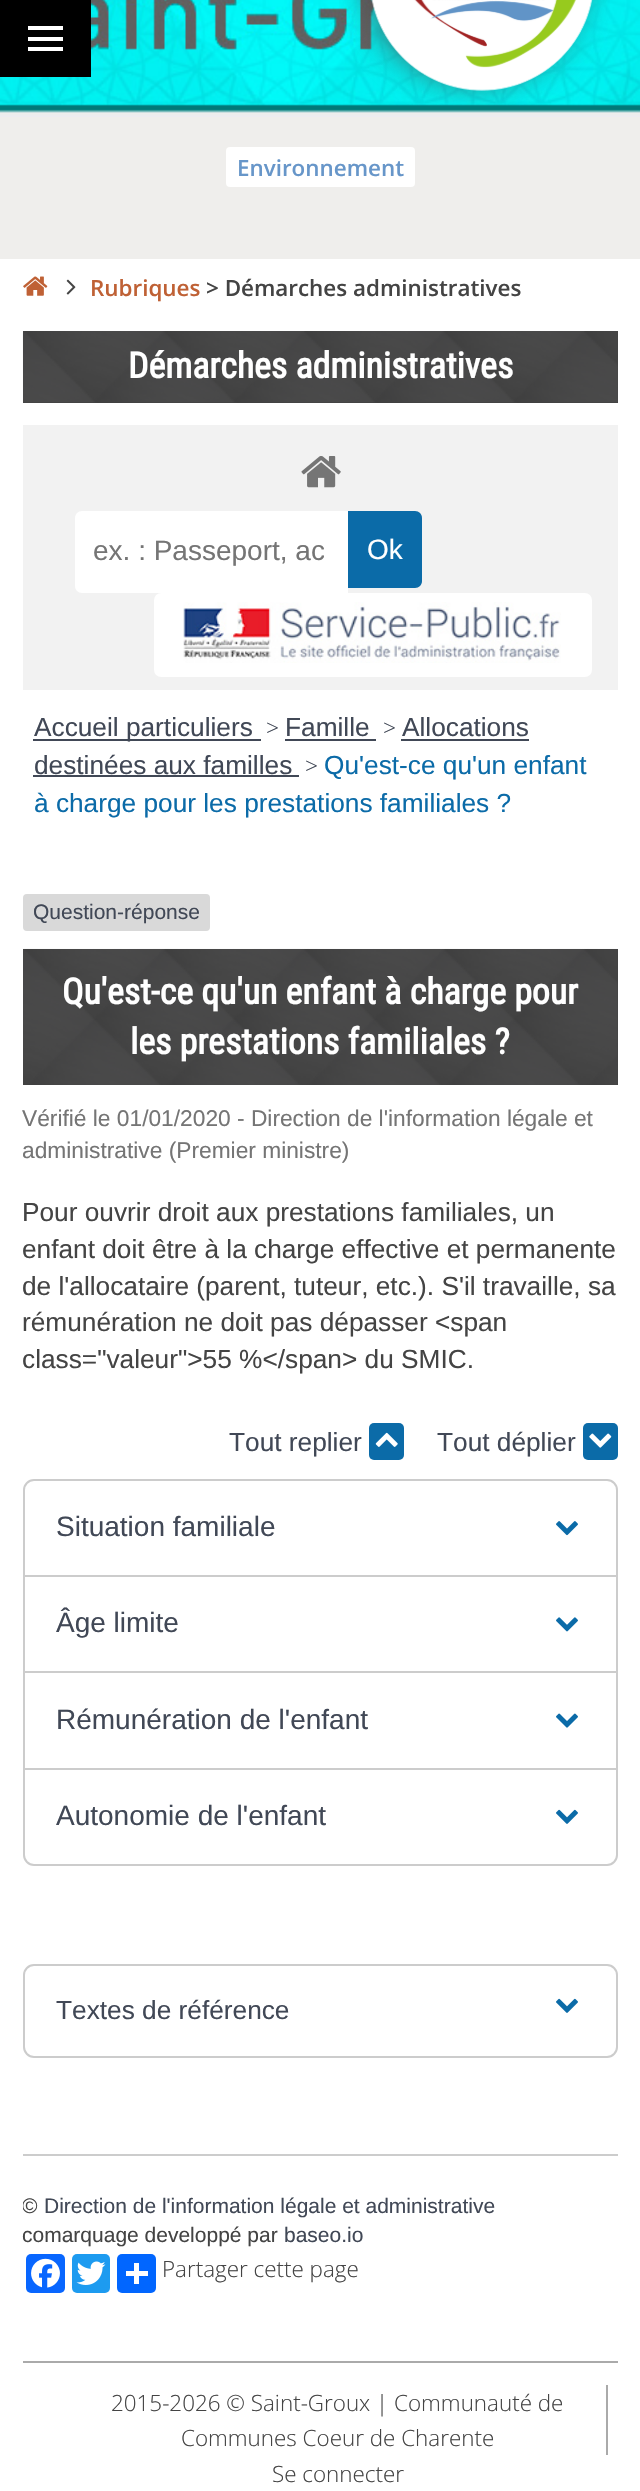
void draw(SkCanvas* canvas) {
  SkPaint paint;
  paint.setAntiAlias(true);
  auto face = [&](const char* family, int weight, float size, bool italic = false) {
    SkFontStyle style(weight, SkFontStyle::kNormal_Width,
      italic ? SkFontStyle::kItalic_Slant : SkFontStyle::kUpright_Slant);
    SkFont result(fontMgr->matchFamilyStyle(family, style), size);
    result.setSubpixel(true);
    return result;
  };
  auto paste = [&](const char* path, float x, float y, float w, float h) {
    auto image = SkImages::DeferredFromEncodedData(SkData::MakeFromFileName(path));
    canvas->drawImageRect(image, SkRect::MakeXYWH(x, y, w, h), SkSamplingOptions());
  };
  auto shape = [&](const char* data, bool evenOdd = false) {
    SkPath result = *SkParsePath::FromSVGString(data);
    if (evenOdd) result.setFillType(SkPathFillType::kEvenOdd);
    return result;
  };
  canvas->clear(0xffffffff);
  paste("img/1.png", 0, 0, 640, 117);
  {
    const struct { float x, y, w, h; SkColor color; } items[] = {
      {0, 0, 91, 77, 0xff000000},
      {28, 37, 35, 4, 0xffffffff},
      {28, 26, 35, 4, 0xffffffff},
      {28, 47, 35, 4, 0xffffffff},
      {0, 117, 640, 142, 0xffefeeec},
    };
    for (auto [x, y, w, h, color] : items) {
      paint.setColor(color);
      canvas->drawRect(SkRect::MakeXYWH(x, y, w, h), paint);
    }
  }
  paste("img/2.png", 339, 0, 271, 106);
  paint.setColor(0xffffffff);
  canvas->drawRoundRect(SkRect::MakeXYWH(226, 147, 189, 40), 4, 4, paint);
  paste("img/3.png", 23, 276, 25, 20);
  paste("img/4.png", 66, 279, 10, 16);
  paint.setColor(0xff404040);
  canvas->drawRect(SkRect::MakeXYWH(23, 331, 595, 72), paint);
  paste("img/5.png", 22, 331, 596, 72);
  paint.setColor(0xfff2f2f2);
  canvas->drawRect(SkRect::MakeXYWH(23, 425, 595, 265), paint);
  paste("img/6.png", 301, 456, 40, 32);
  paint.setColor(0xffffffff);
  canvas->drawPath(shape("M82 511H348V593H82C78 593 75 590 75 586V518C75 514 78 511 82 511Z"), paint);
  paint.setColor(0xff0b6ba8);
  canvas->drawPath(shape("M348 511H415C419 511 422 514 422 518V581C422 585 419 588 415 588H348Z"), paint);
  paint.setColor(0xffffffff);
  canvas->drawRoundRect(SkRect::MakeXYWH(154, 593, 438, 84), 7, 7, paint);
  paste("img/7.png", 183, 602, 378, 61);
  {
    const struct { float x, y, w, h; SkColor color; } items[] = {
      {33, 739, 228, 2, 0xff414856},
      {285, 739, 91, 2, 0xff414856},
      {401, 739, 128, 2, 0xff414856},
      {33, 775, 266, 2, 0xff414856},
    };
    for (auto [x, y, w, h, color] : items) {
      paint.setColor(color);
      canvas->drawRect(SkRect::MakeXYWH(x, y, w, h), paint);
    }
  }
  paint.setColor(0xffd9d9d9);
  canvas->drawRoundRect(SkRect::MakeXYWH(23, 894, 187, 37), 4, 4, paint);
  paint.setColor(0xff404040);
  canvas->drawRect(SkRect::MakeXYWH(23, 949, 595, 136), paint);
  paste("img/8.png", 23, 948, 595, 137);
  paint.setColor(0xff0b6ba8);
  canvas->drawRoundRect(SkRect::MakeXYWH(369, 1423, 35, 37), 5, 5, paint);
  paste("img/9.png", 375, 1432, 23, 15);
  canvas->drawRoundRect(SkRect::MakeXYWH(583, 1423, 35, 37), 5, 5, paint);
  paste("img/10.png", 589, 1433, 23, 15);
  paint.setStroke(true);
  paint.setStrokeWidth(2);
  paint.setColor(0xffcccccc);
  canvas->drawRoundRect(SkRect::MakeXYWH(24, 1480, 593, 385), 10, 10, paint);
  paste("img/11.png", 556, 1521, 22, 15);
  paint.setStroke(false);
  canvas->drawRect(SkRect::MakeXYWH(25, 1575, 591, 2), paint);
  paste("img/12.png", 556, 1617, 22, 15);
  canvas->drawRect(SkRect::MakeXYWH(25, 1671, 591, 2), paint);
  paste("img/13.png", 556, 1713, 22, 15);
  canvas->drawRect(SkRect::MakeXYWH(25, 1768, 591, 2), paint);
  paste("img/14.png", 556, 1809, 22, 15);
  paint.setStroke(true);
  canvas->drawRoundRect(SkRect::MakeXYWH(24, 1965, 593, 92), 10, 10, paint);
  paste("img/14.png", 556, 1998, 22, 15);
  paint.setStroke(false);
  canvas->drawRect(SkRect::MakeXYWH(23, 2154, 595, 2), paint);
  paint.setColor(0xff0866ff);
  canvas->drawRoundRect(SkRect::MakeXYWH(26, 2254, 39, 39), 5, 5, paint);
  paste("img/15.png", 31, 2258, 29, 30);
  paint.setColor(0xff1d9bf0);
  canvas->drawRoundRect(SkRect::MakeXYWH(72, 2254, 38, 39), 5, 5, paint);
  paste("img/16.png", 76, 2261, 30, 24);
  paint.setColor(0xff0166ff);
  canvas->drawRoundRect(SkRect::MakeXYWH(117, 2254, 39, 39), 5, 5, paint);
  {
    const struct { float x, y, w, h; SkColor color; } items[] = {
      {134, 2263, 5, 21, 0xffffffff},
      {126, 2271, 22, 5, 0xffffffff},
      {23, 2361, 595, 2, 0xffaaaaaa},
      {606, 2385, 2, 70, 0xffaaaaaa},
    };
    for (auto [x, y, w, h, color] : items) {
      paint.setColor(color);
      canvas->drawRect(SkRect::MakeXYWH(x, y, w, h), paint);
    }
  }
  auto f0 = face("Open Sans", 600, 22.4f);
  paint.setColor(0xff6796c9);
  canvas->drawString("Environnement", 237, 176, f0, paint);
  paint.setColor(0xffbf6135);
  canvas->drawString("Rubriques", 90, 296, f0, paint);
  paint.setColor(0xff444444);
  canvas->drawString("> Démarches administratives", 206, 296, f0, paint);
  auto f1 = face("Roboto Condensed", 700, 35.8f);
  paint.setColor(0xffffffff);
  canvas->drawString("Démarches administratives", 128, 378, f1, paint);
  canvas->save();
  canvas->clipRect(SkRect::MakeXYWH(93, 536, 231, 31));
  auto f2 = face("Liberation Sans", 400, 28);
  paint.setColor(0xff757575);
  canvas->drawString("ex. : Passeport, ac", 93, 560, f2, paint);
  canvas->restore();
  paint.setColor(0xffffffff);
  canvas->drawString("Ok", 367, 559, f2, paint);
  auto f3 = face("Liberation Sans", 400, 26.25f);
  paint.setColor(0xff414856);
  canvas->drawString("Accueil particuliers", 34, 736, f3, paint);
  auto f4 = face("Open Sans", 300, 22.75f);
  canvas->drawString(">", 266, 736, f4, paint);
  canvas->drawString("Famille", 285, 736, f3, paint);
  canvas->drawString(">", 383, 736, f4, paint);
  canvas->drawString("Allocations", 402, 736, f3, paint);
  canvas->drawString("destinées aux familles", 34, 774, f3, paint);
  canvas->drawString(">", 305, 774, f4, paint);
  paint.setColor(0xff0b6ba8);
  canvas->drawString("Qu'est-ce qu'un enfant", 324, 774, f3, paint);
  canvas->drawString("à charge pour les prestations familiales ?", 34, 812, f3, paint);
  auto f5 = face("Liberation Sans", 400, 21);
  paint.setColor(0xff414856);
  canvas->drawString("Question-réponse", 33, 919, f5, paint);
  paint.setColor(0xffffffff);
  canvas->drawString("Qu'est-ce qu'un enfant à charge pour", 62, 1004, f1, paint);
  canvas->drawString("les prestations familiales ?", 130, 1054, f1, paint);
  auto f6 = face("Liberation Sans", 400, 22.75f);
  paint.setColor(0xff757575);
  canvas->drawString("Vérifié le 01/01/2020 - Direction de l'information légale et", 22, 1126, f6, paint);
  canvas->drawString("administrative (Premier ministre)", 22, 1158, f6, paint);
  paint.setColor(0xff444444);
  {
    const struct { const char* s; float x, y; } items[] = {
      {"Pour ouvrir droit aux prestations familiales, un", 22, 1221},
      {"enfant doit être à la charge effective et permanente", 22, 1258},
      {"de l'allocataire (parent, tuteur, etc.). S'il travaille, sa", 22, 1295},
      {"rémunération ne doit pas dépasser <span", 22, 1331},
      {"class=\"valeur\">55 %</span> du SMIC.", 22, 1368},
    };
    for (auto [s, x, y] : items) {
      canvas->drawString(s, x, y, f3, paint);
    }
  }
  paint.setColor(0xff414856);
  canvas->drawString("Tout replier", 229, 1451, f3, paint);
  canvas->drawString("Tout déplier", 437, 1451, f3, paint);
  {
    const struct { const char* s; float x, y; } items[] = {
      {"Situation familiale", 56, 1536},
      {"Âge limite", 56, 1632},
      {"Rémunération de l'enfant", 56, 1729},
      {"Autonomie de l'enfant", 56, 1825},
    };
    for (auto [s, x, y] : items) {
      canvas->drawString(s, x, y, f2, paint);
    }
  }
  canvas->drawString("Textes de référence", 56, 2019, f3, paint);
  canvas->save();
  canvas->clipRect(SkRect::MakeXYWH(23, 425, 595, 1829));
  paint.setColor(0xff444444);
  canvas->drawString("©", 22, 2213, f5, paint);
  canvas->restore();
  paint.setColor(0xff414856);
  canvas->drawString("Direction de l'information légale et administrative", 44, 2213, f5, paint);
  paint.setColor(0xff444444);
  canvas->drawString("comarquage developpé par", 22, 2242, f5, paint);
  paint.setColor(0xff414856);
  canvas->drawString("baseo.io", 284, 2242, f5, paint);
  auto f7 = face("Open Sans", 300, 22.4f);
  paint.setColor(0xff444444);
  {
    const struct { const char* s; float x, y; } items[] = {
      {"Partager cette page", 162, 2277},
      {"2015-2026 © Saint-Groux | Communauté de", 111, 2411},
      {"Communes Coeur de Charente", 181, 2446},
      {"Se connecter", 272, 2482},
    };
    for (auto [s, x, y] : items) {
      canvas->drawString(s, x, y, f7, paint);
    }
  }
}
